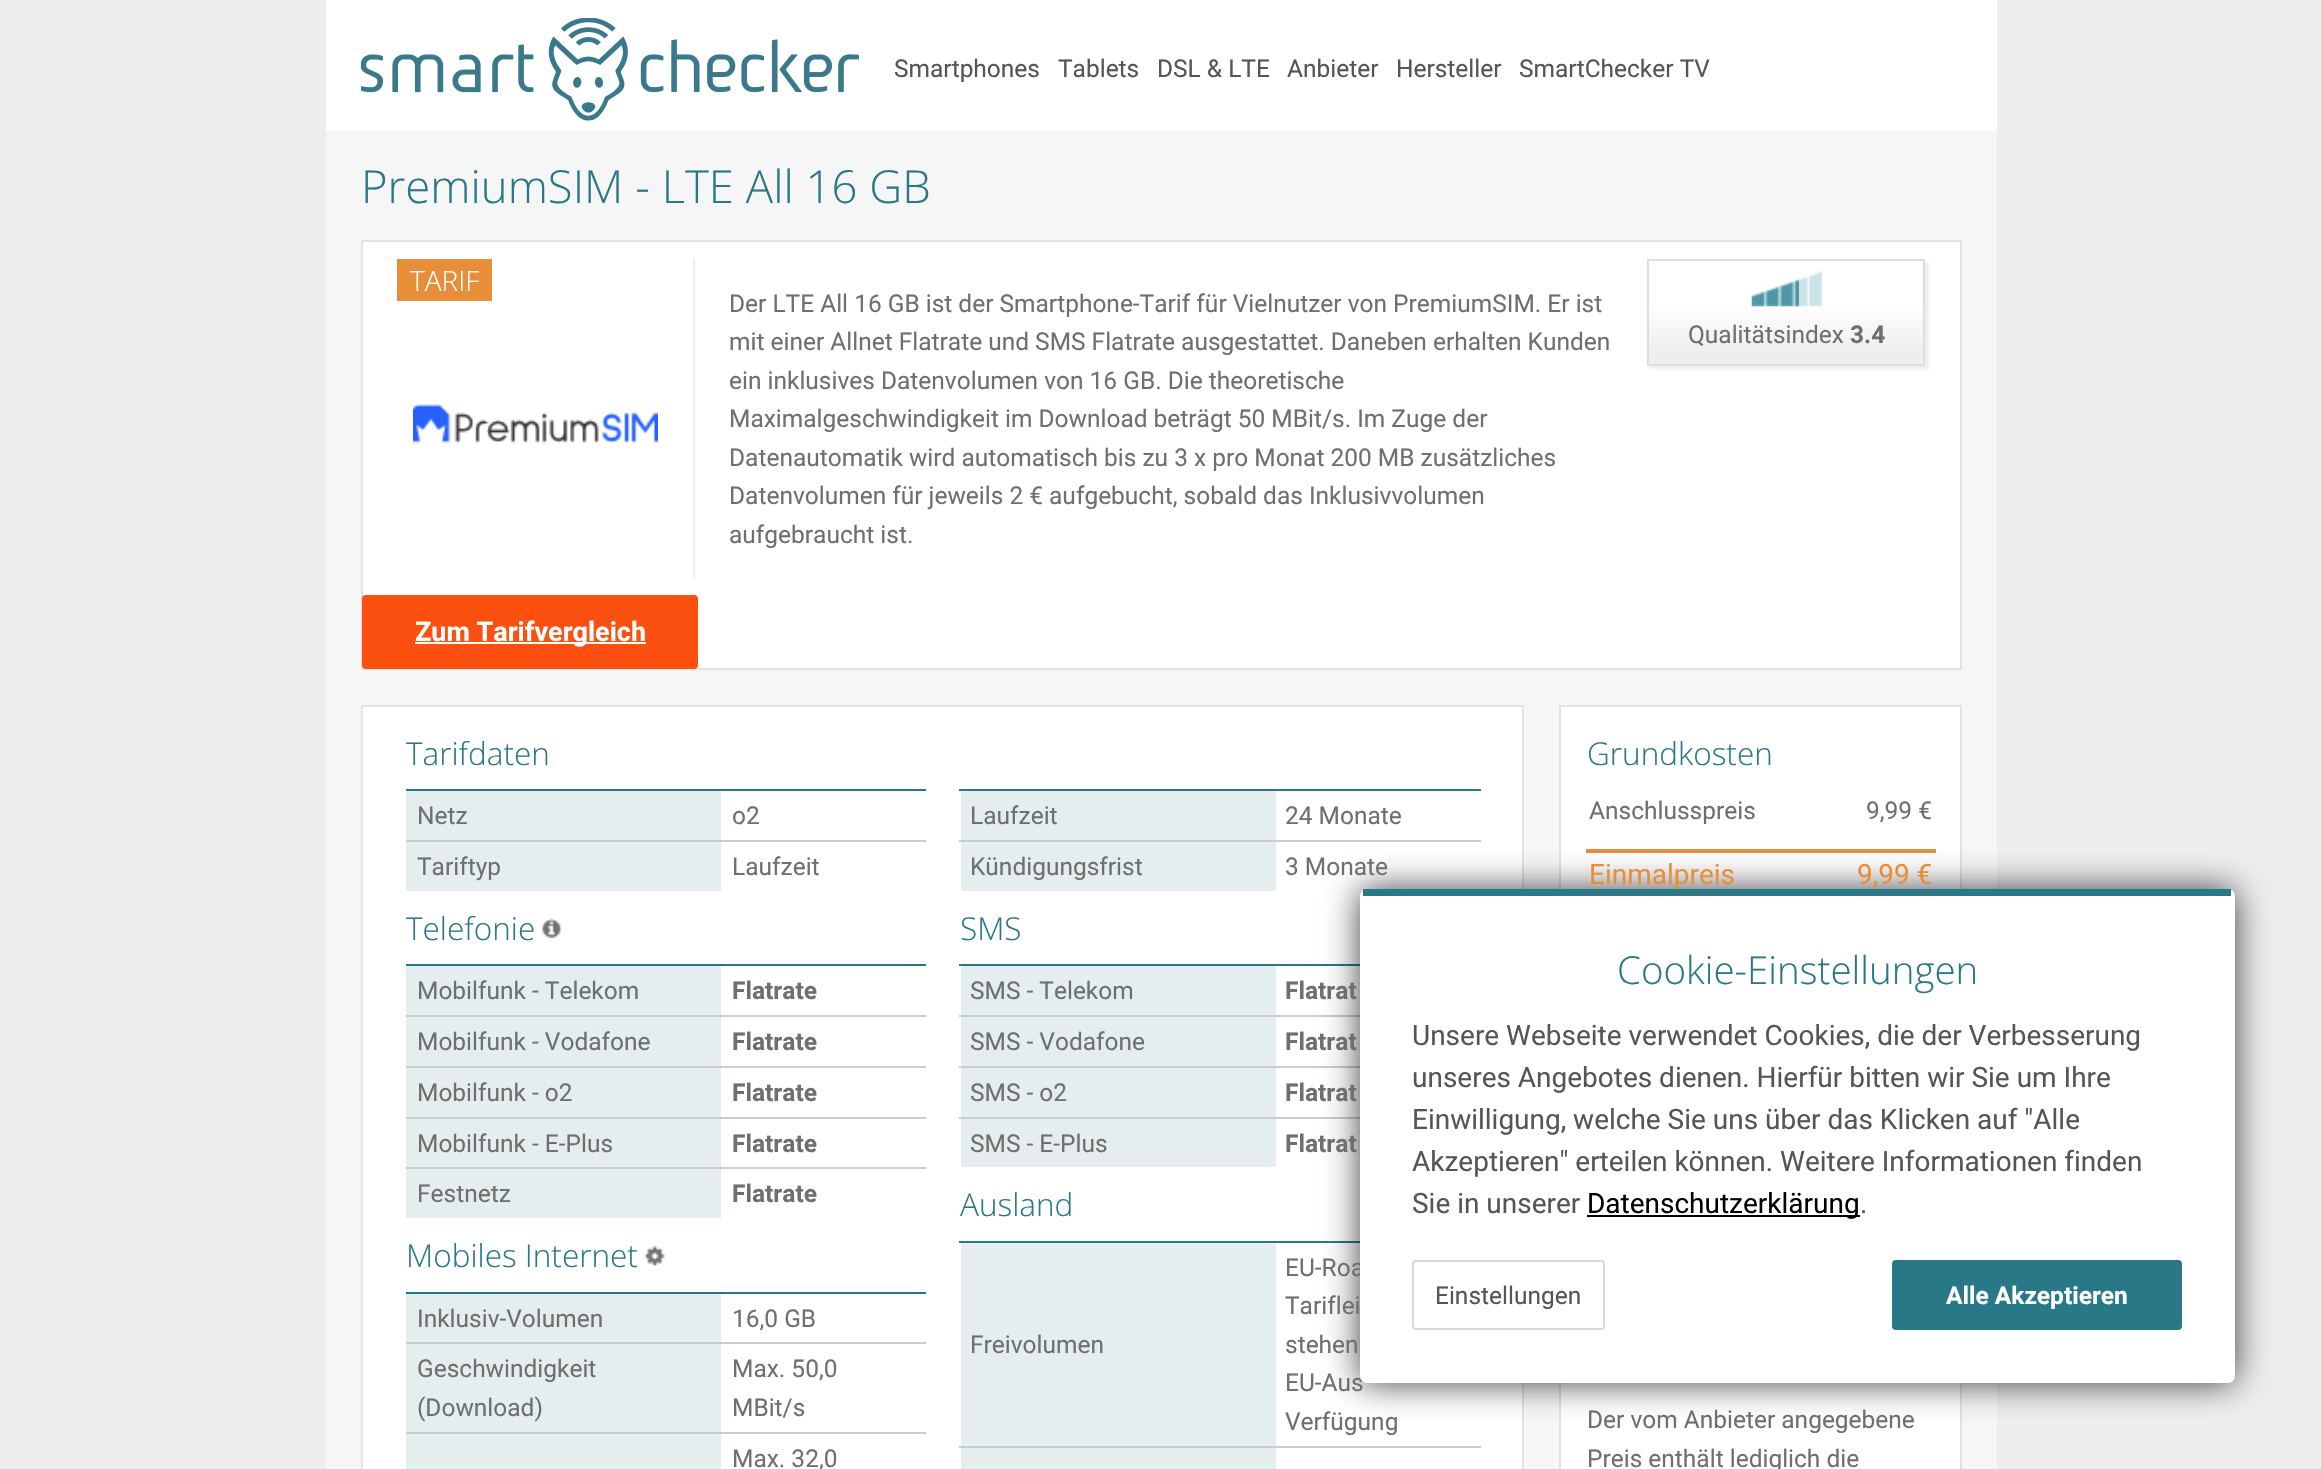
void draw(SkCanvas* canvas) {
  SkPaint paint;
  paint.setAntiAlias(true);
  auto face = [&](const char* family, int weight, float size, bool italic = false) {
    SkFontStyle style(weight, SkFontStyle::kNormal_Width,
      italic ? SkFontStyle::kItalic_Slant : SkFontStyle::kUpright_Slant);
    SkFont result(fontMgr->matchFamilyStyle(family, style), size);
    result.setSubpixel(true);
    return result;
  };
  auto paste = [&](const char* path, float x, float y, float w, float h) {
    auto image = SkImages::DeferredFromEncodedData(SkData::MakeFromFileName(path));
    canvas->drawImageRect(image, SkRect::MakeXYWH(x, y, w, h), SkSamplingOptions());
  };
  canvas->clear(0xffeeeeee);
  paint.setColor(0xfff6f6f6);
  canvas->drawRect(SkRect::MakeXYWH(326, 131, 1671, 1338), paint);
  paint.setColor(0xffffffff);
  canvas->drawRect(SkRect::MakeXYWH(326, 0, 1671, 131), paint);
  paste("img/1.png", 361, 18, 498, 103);
  canvas->drawRect(SkRect::MakeXYWH(362, 241, 1599, 428), paint);
  paint.setStroke(true);
  paint.setStrokeWidth(2);
  paint.setColor(0xffe2e2e2);
  canvas->drawRect(SkRect::MakeXYWH(362, 241, 1599, 428), paint);
  paint.setStroke(false);
  paint.setColor(0xffe78e39);
  canvas->drawRect(SkRect::MakeXYWH(397, 259, 95, 42), paint);
  paste("img/2.png", 413, 404, 245, 40);
  paint.setColor(0xffeeeeee);
  canvas->drawRect(SkRect::MakeXYWH(693, 259, 2, 319), paint);
  paint.setMaskFilter(SkMaskFilter::MakeBlur(kNormal_SkBlurStyle, 1));
  canvas->drawRect(SkRect::MakeXYWH(1650, 263, 279, 106), paint);
  paint.setMaskFilter(nullptr);
  {
    const SkColor colors[] = {0xffffffff, 0xffeeeeee};
    const float stops[] = {0.4f, 0.9f};
    const SkPoint ends[] = {{1786, 261}, {1786, 364}};
    paint.setShader(SkGradientShader::MakeLinear(ends, colors, stops, 2, SkTileMode::kClamp));
    paint.setAlpha(255);
  }
  canvas->drawRect(SkRect::MakeXYWH(1649, 262, 274, 102), paint);
  paint.setStroke(true);
  paint.setShader(nullptr);
  paint.setColor(0xffdddddd);
  canvas->drawRect(SkRect::MakeXYWH(1648, 260, 276, 105), paint);
  paste("img/3.png", 1751, 271, 71, 36);
  paste("img/4.png", 1751, 279, 48, 28);
  paint.setStroke(false);
  paint.setColor(0xfffc5010);
  canvas->drawRoundRect(SkRect::MakeXYWH(362, 595, 336, 74), 4, 4, paint);
  paint.setColor(0xffffffff);
  canvas->drawRect(SkRect::MakeXYWH(415, 642, 231, 2), paint);
  canvas->drawRect(SkRect::MakeXYWH(362, 706, 1161, 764), paint);
  paint.setStroke(true);
  paint.setColor(0xffe2e2e2);
  canvas->drawRect(SkRect::MakeXYWH(362, 706, 1161, 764), paint);
  paint.setStroke(false);
  {
    const struct { float x, y, w, h; SkColor color; } items[] = {
      {406, 791, 315, 49, 0xffe4eeee},
      {406, 789, 520, 2, 0xff287887},
      {406, 842, 315, 49, 0xffe4eeee},
      {406, 840, 520, 2, 0xffcccccc},
      {961, 791, 315, 49, 0xffe4eeee},
      {959, 789, 522, 2, 0xff287887},
      {961, 842, 315, 49, 0xffe4eeee},
      {959, 840, 522, 2, 0xffcccccc},
    };
    for (auto [x, y, w, h, color] : items) {
      paint.setColor(color);
      canvas->drawRect(SkRect::MakeXYWH(x, y, w, h), paint);
    }
  }
  paste("img/5.png", 542, 918, 20, 20);
  {
    const struct { float x, y, w, h; SkColor color; } items[] = {
      {406, 966, 315, 49, 0xffe4eeee},
      {406, 964, 520, 2, 0xff287887},
      {406, 1017, 315, 49, 0xffe4eeee},
      {406, 1015, 520, 2, 0xffcccccc},
      {406, 1068, 315, 49, 0xffe4eeee},
      {406, 1066, 520, 2, 0xffcccccc},
      {406, 1119, 315, 48, 0xffe4eeee},
      {406, 1117, 520, 2, 0xffcccccc},
      {406, 1169, 315, 49, 0xffe4eeee},
      {406, 1167, 520, 2, 0xffcccccc},
    };
    for (auto [x, y, w, h, color] : items) {
      paint.setColor(color);
      canvas->drawRect(SkRect::MakeXYWH(x, y, w, h), paint);
    }
  }
  paste("img/6.png", 645, 1246, 20, 20);
  {
    const struct { float x, y, w, h; SkColor color; } items[] = {
      {406, 1294, 315, 48, 0xffe4eeee},
      {406, 1292, 520, 2, 0xff287887},
      {406, 1344, 315, 88, 0xffe4eeee},
      {406, 1342, 520, 2, 0xffcccccc},
      {406, 1434, 315, 35, 0xffe4eeee},
      {406, 1432, 520, 2, 0xffcccccc},
      {961, 966, 315, 49, 0xffe4eeee},
      {959, 964, 401, 2, 0xff287887},
      {961, 1017, 315, 49, 0xffe4eeee},
      {959, 1015, 401, 2, 0xffcccccc},
      {961, 1068, 315, 49, 0xffe4eeee},
      {959, 1066, 401, 2, 0xffcccccc},
      {961, 1119, 315, 48, 0xffe4eeee},
      {959, 1117, 401, 2, 0xffcccccc},
      {961, 1243, 315, 203, 0xffe4eeee},
      {959, 1241, 401, 2, 0xff287887},
      {959, 1446, 522, 2, 0xffcccccc},
      {961, 1448, 315, 21, 0xffe4eeee},
      {1561, 707, 399, 182, 0xffffffff},
    };
    for (auto [x, y, w, h, color] : items) {
      paint.setColor(color);
      canvas->drawRect(SkRect::MakeXYWH(x, y, w, h), paint);
    }
  }
  paint.setStroke(true);
  paint.setColor(0xffe2e2e2);
  canvas->drawRect(SkRect::MakeXYWH(1560, 706, 401, 529), paint);
  paint.setStroke(false);
  paint.setColor(0xffe78e39);
  canvas->drawRect(SkRect::MakeXYWH(1586, 849, 350, 4), paint);
  paint.setColor(0xffffffff);
  canvas->drawRect(SkRect::MakeXYWH(1561, 1383, 399, 86), paint);
  paint.setStroke(true);
  paint.setColor(0xffe2e2e2);
  canvas->drawRect(SkRect::MakeXYWH(1560, 1272, 401, 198), paint);
  paint.setStroke(false);
  paint.setColor(0xbf000000);
  paint.setMaskFilter(SkMaskFilter::MakeBlur(kNormal_SkBlurStyle, 17.5f));
  canvas->drawRoundRect(SkRect::MakeXYWH(1360, 889, 875, 494), 7, 7, paint);
  paint.setMaskFilter(nullptr);
  auto f0 = face("Roboto", 400, 24.5f);
  paint.setColor(0xff555555);
  {
    const struct { const char* s; float x, y; } items[] = {
      {"Smartphones", 894, 77},
      {"Tablets", 1058, 77},
      {"DSL & LTE", 1157, 77},
      {"Anbieter", 1287, 77},
      {"Hersteller", 1396, 77},
      {"SmartChecker TV", 1519, 77},
    };
    for (auto [s, x, y] : items) {
      canvas->drawString(s, x, y, f0, paint);
    }
  }
  auto f1 = face("Open Sans", 300, 45.5f);
  paint.setColor(0xff287887);
  canvas->drawString("PremiumSIM - LTE All 16 GB", 361, 203, f1, paint);
  auto f2 = face("Open Sans", 300, 28);
  paint.setColor(0xffffffff);
  canvas->drawString("TARIF", 410, 291, f2, paint);
  paint.setColor(0xff6f6f6f);
  {
    const struct { const char* s; float x, y; } items[] = {
      {"Der LTE All 16 GB ist der Smartphone-Tarif für Vielnutzer von PremiumSIM. Er ist", 729, 312},
      {"mit einer Allnet Flatrate und SMS Flatrate ausgestattet. Daneben erhalten Kunden", 729, 350},
      {"ein inklusives Datenvolumen von 16 GB. Die theoretische", 729, 389},
      {"Maximalgeschwindigkeit im Download beträgt 50 MBit/s. Im Zuge der", 729, 427},
      {"Datenautomatik wird automatisch bis zu 3 x pro Monat 200 MB zusätzliches", 729, 466},
      {"Datenvolumen für jeweils 2 € aufgebucht, sobald das Inklusivvolumen", 729, 504},
      {"aufgebraucht ist.", 729, 543},
      {"Qualitätsindex", 1688, 343},
    };
    for (auto [s, x, y] : items) {
      canvas->drawString(s, x, y, f0, paint);
    }
  }
  auto f3 = face("Roboto", 700, 24.5f);
  canvas->drawString("3.4", 1850, 343, f3, paint);
  auto f4 = face("Roboto", 700, 27);
  paint.setColor(0xffffffff);
  canvas->drawString("Zum Tarifvergleich", 415, 641, f4, paint);
  auto f5 = face("Open Sans", 300, 31.5f);
  paint.setColor(0xff287887);
  canvas->drawString("Tarifdaten", 406, 765, f5, paint);
  paint.setColor(0xff6f6f6f);
  {
    const struct { const char* s; float x, y; } items[] = {
      {"Netz", 417, 824},
      {"o2", 732, 824},
      {"Tariftyp", 417, 875},
      {"Laufzeit", 732, 875},
      {"Laufzeit", 970, 824},
      {"24 Monate", 1285, 824},
      {"Kündigungsfrist", 970, 875},
      {"3 Monate", 1285, 875},
    };
    for (auto [s, x, y] : items) {
      canvas->drawString(s, x, y, f0, paint);
    }
  }
  paint.setColor(0xff287887);
  canvas->drawString("Telefonie", 406, 940, f5, paint);
  paint.setColor(0xff6f6f6f);
  canvas->drawString("Mobilfunk - Telekom", 417, 999, f0, paint);
  canvas->drawString("Flatrate", 732, 999, f3, paint);
  canvas->drawString("Mobilfunk - Vodafone", 417, 1050, f0, paint);
  canvas->drawString("Flatrate", 732, 1050, f3, paint);
  canvas->drawString("Mobilfunk - o2", 417, 1101, f0, paint);
  canvas->drawString("Flatrate", 732, 1101, f3, paint);
  canvas->drawString("Mobilfunk - E-Plus", 417, 1152, f0, paint);
  canvas->drawString("Flatrate", 732, 1152, f3, paint);
  canvas->drawString("Festnetz", 417, 1202, f0, paint);
  canvas->drawString("Flatrate", 732, 1202, f3, paint);
  paint.setColor(0xff287887);
  canvas->drawString("Mobiles Internet", 406, 1267, f5, paint);
  paint.setColor(0xff6f6f6f);
  {
    const struct { const char* s; float x, y; } items[] = {
      {"Inklusiv-Volumen", 417, 1327},
      {"16,0 GB", 732, 1327},
      {"Geschwindigkeit", 417, 1377},
      {"(Download)", 417, 1416},
      {"Max. 50,0", 732, 1377},
      {"MBit/s", 732, 1416},
      {"Max. 32,0", 732, 1467},
    };
    for (auto [s, x, y] : items) {
      canvas->drawString(s, x, y, f0, paint);
    }
  }
  paint.setColor(0xff287887);
  canvas->drawString("SMS", 960, 940, f5, paint);
  paint.setColor(0xff6f6f6f);
  canvas->drawString("SMS - Telekom", 970, 999, f0, paint);
  canvas->drawString("Flatrat", 1285, 999, f3, paint);
  canvas->drawString("SMS - Vodafone", 970, 1050, f0, paint);
  canvas->drawString("Flatrat", 1285, 1050, f3, paint);
  canvas->drawString("SMS - o2", 970, 1101, f0, paint);
  canvas->drawString("Flatrat", 1285, 1101, f3, paint);
  canvas->drawString("SMS - E-Plus", 970, 1152, f0, paint);
  canvas->drawString("Flatrat", 1285, 1152, f3, paint);
  paint.setColor(0xff287887);
  canvas->drawString("Ausland", 960, 1216, f5, paint);
  paint.setColor(0xff6f6f6f);
  {
    const struct { const char* s; float x, y; } items[] = {
      {"Freivolumen", 970, 1353},
      {"EU-Roa", 1285, 1276},
      {"Tariflei", 1285, 1314},
      {"stehen", 1285, 1353},
      {"EU-Aus", 1285, 1391},
      {"Verfügung", 1285, 1430},
    };
    for (auto [s, x, y] : items) {
      canvas->drawString(s, x, y, f0, paint);
    }
  }
  paint.setColor(0xff287887);
  canvas->drawString("Grundkosten", 1587, 765, f5, paint);
  paint.setColor(0xff6f6f6f);
  canvas->drawString("Anschlusspreis", 1589, 819, f0, paint);
  canvas->drawString("9,99 €", 1866, 819, f0, paint);
  auto f6 = face("Roboto", 400, 28);
  paint.setColor(0xffe78e39);
  canvas->drawString("Einmalpreis", 1589, 884, f6, paint);
  canvas->drawString("9,99 €", 1857, 884, f6, paint);
  paint.setColor(0xff6f6f6f);
  canvas->drawString("Der vom Anbieter angegebene", 1587, 1428, f0, paint);
  canvas->drawString("Preis enthält lediglich die", 1587, 1467, f0, paint);
  paint.setColor(0xffffffff);
  canvas->drawRoundRect(SkRect::MakeXYWH(1360, 889, 875, 494), 7, 7, paint);
  paint.setColor(0xff287887);
  canvas->drawRect(SkRect::MakeXYWH(1363, 889, 868, 7), paint);
  auto f7 = face("Open Sans", 300, 38.5f);
  canvas->drawString("Cookie-Einstellungen", 1617, 984, f7, paint);
  paint.setColor(0xff555555);
  {
    const struct { const char* s; float x, y; } items[] = {
      {"Unsere Webseite verwendet Cookies, die der Verbesserung", 1412, 1045},
      {"unseres Angebotes dienen. Hierfür bitten wir Sie um Ihre", 1412, 1087},
      {"Einwilligung, welche Sie uns über das Klicken auf \"Alle", 1412, 1129},
      {"Akzeptieren\" erteilen können. Weitere Informationen finden", 1412, 1171},
      {"Sie in unserer", 1412, 1213},
    };
    for (auto [s, x, y] : items) {
      canvas->drawString(s, x, y, f6, paint);
    }
  }
  paint.setColor(0xff000000);
  canvas->drawRect(SkRect::MakeXYWH(1587, 1215, 273, 2), paint);
  canvas->drawString("Datenschutzerklärung", 1587, 1213, f6, paint);
  paint.setColor(0xff555555);
  canvas->drawString(".", 1860, 1213, f6, paint);
  paint.setStroke(true);
  paint.setColor(0xffd9d9d9);
  canvas->drawRoundRect(SkRect::MakeXYWH(1413, 1261, 191, 68), 3, 3, paint);
  paint.setStroke(false);
  paint.setColor(0xff555555);
  canvas->drawString("Einstellungen", 1435, 1304, f0, paint);
  paint.setColor(0xff287887);
  canvas->drawRoundRect(SkRect::MakeXYWH(1893, 1261, 288, 68), 3, 3, paint);
  paint.setStroke(true);
  canvas->drawRoundRect(SkRect::MakeXYWH(1893, 1261, 288, 68), 3, 3, paint);
  paint.setStroke(false);
  paint.setColor(0xffffffff);
  canvas->drawString("Alle Akzeptieren", 1946, 1304, f3, paint);
}
